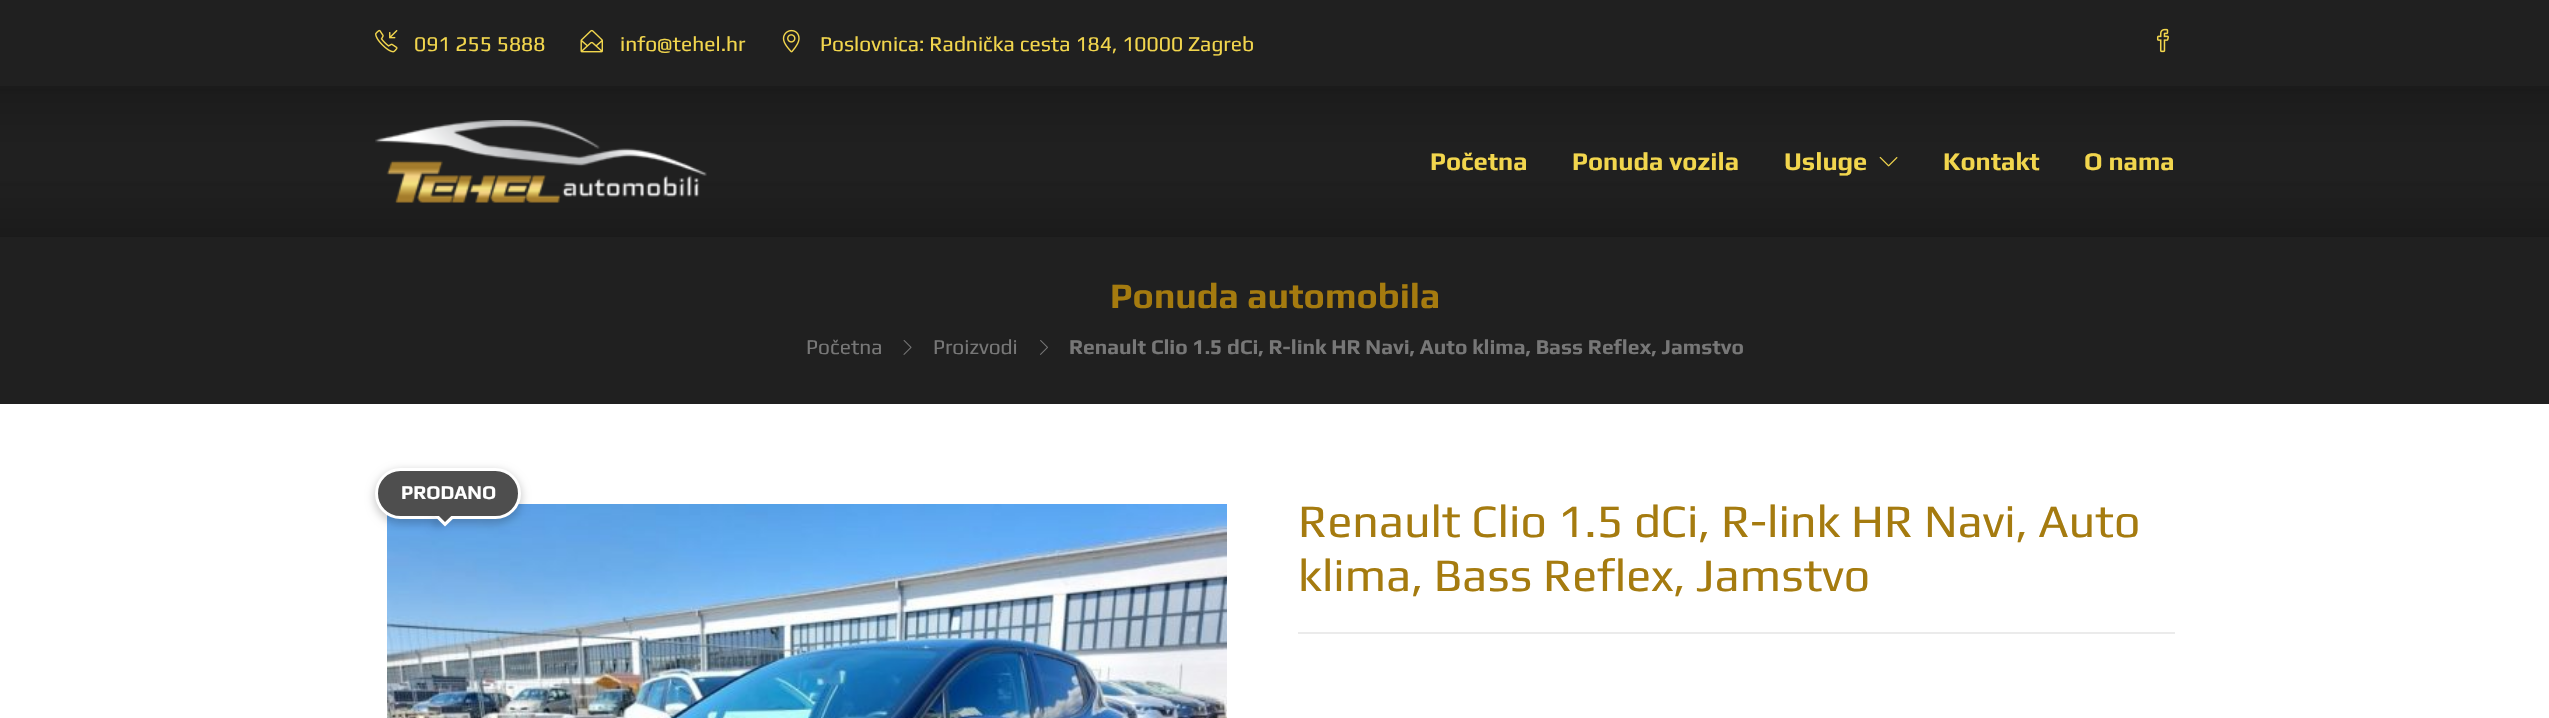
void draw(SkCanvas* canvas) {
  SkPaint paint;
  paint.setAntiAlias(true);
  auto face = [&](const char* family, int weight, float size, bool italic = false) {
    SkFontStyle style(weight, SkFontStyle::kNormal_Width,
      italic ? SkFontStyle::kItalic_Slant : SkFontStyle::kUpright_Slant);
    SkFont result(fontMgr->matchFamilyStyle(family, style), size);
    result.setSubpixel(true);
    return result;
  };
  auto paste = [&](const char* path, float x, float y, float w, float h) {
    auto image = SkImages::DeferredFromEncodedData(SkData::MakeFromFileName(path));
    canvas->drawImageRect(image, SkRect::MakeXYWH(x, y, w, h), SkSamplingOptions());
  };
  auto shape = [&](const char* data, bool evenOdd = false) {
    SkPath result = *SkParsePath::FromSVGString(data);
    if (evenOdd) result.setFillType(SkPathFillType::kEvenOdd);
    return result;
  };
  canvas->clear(0xffffffff);
  paint.setColor(0xff202020);
  canvas->drawRect(SkRect::MakeXYWH(0, 0, 2549, 86), paint);
  paste("img/1.png", 375, 29, 23, 24);
  paste("img/2.png", 580, 29, 23, 24);
  paste("img/3.png", 782, 29, 18, 24);
  paste("img/4.png", 2156, 28, 13, 25);
  paste("img/5.png", 0, 86, 2549, 151);
  paste("img/6.png", 375, 120, 332, 83);
  paste("img/7.png", 1879, 156, 19, 11);
  canvas->drawRect(SkRect::MakeXYWH(0, 237, 2549, 167), paint);
  paste("img/8.png", 903, 340, 9, 15);
  paste("img/9.png", 1040, 340, 8, 15);
  paste("img/10.png", 387, 504, 840, 214);
  paint.setColor(0x33000000);
  paint.setMaskFilter(SkMaskFilter::MakeBlur(kNormal_SkBlurStyle, 4));
  canvas->drawRoundRect(SkRect::MakeXYWH(374, 470, 148, 54), 27, 27, paint);
  paint.setMaskFilter(nullptr);
  paint.setColor(0xff4e4e4e);
  canvas->drawRoundRect(SkRect::MakeXYWH(376.5f, 469.5f, 143, 48), 24, 24, paint);
  paint.setStroke(true);
  paint.setStrokeWidth(3);
  paint.setColor(0xffffffff);
  canvas->drawRoundRect(SkRect::MakeXYWH(376.5f, 469.5f, 143, 48), 24, 24, paint);
  paint.setStroke(false);
  paint.setColor(0x26000000);
  paint.setMaskFilter(SkMaskFilter::MakeBlur(kNormal_SkBlurStyle, 4));
  canvas->drawRect(SkRect::MakeXYWH(434, 518, 9, 9), paint);
  paint.setMaskFilter(nullptr);
  paint.setColor(0xffffffff);
  canvas->drawPath(shape("M456 516L445 526.5V516ZM445 526.5L434.5 516H445Z"), paint);
  paint.setColor(0xff4e4e4e);
  canvas->drawPath(shape("M456 511.5L445 522V511.5ZM445 522L434.5 511.5H445Z"), paint);
  paint.setColor(0xffebebeb);
  canvas->drawRect(SkRect::MakeXYWH(1298, 632, 877, 2), paint);
  auto f0 = face("Play", 400, 21);
  paint.setColor(0xfff2d64d);
  {
    const struct { const char* s; float x, y; } items[] = {
      {"091 255 5888", 414, 51},
      {"info@tehel.hr", 620, 51},
      {"Poslovnica: Radnička cesta 184, 10000 Zagreb", 820, 51},
    };
    for (auto [s, x, y] : items) {
      canvas->drawString(s, x, y, f0, paint);
    }
  }
  auto f1 = face("Play", 700, 25.5f);
  {
    const struct { const char* s; float x, y; } items[] = {
      {"Početna", 1430, 170},
      {"Ponuda vozila", 1572, 170},
      {"Usluge", 1784, 170},
      {"Kontakt", 1943, 170},
      {"O nama", 2084, 170},
    };
    for (auto [s, x, y] : items) {
      canvas->drawString(s, x, y, f1, paint);
    }
  }
  auto f2 = face("Play", 700, 36);
  paint.setColor(0xffa57b0f);
  canvas->drawString("Ponuda automobila", 1110, 308, f2, paint);
  paint.setColor(0xff777777);
  canvas->drawString("Početna", 806, 354, f0, paint);
  canvas->drawString("Proizvodi", 933, 354, f0, paint);
  auto f3 = face("Play", 700, 21);
  canvas->drawString("Renault Clio 1.5 dCi, R-link HR Navi, Auto klima, Bass Reflex, Jamstvo", 1069, 354, f3, paint);
  auto f4 = face("Play", 700, 19.5f);
  paint.setColor(0xffffffff);
  canvas->drawString("PRODANO", 401, 499, f4, paint);
  auto f5 = face("Play", 400, 46.5f);
  paint.setColor(0xffa57b0f);
  canvas->drawString("Renault Clio 1.5 dCi, R-link HR Navi, Auto", 1298, 537, f5, paint);
  canvas->drawString("klima, Bass Reflex, Jamstvo", 1298, 591, f5, paint);
}
